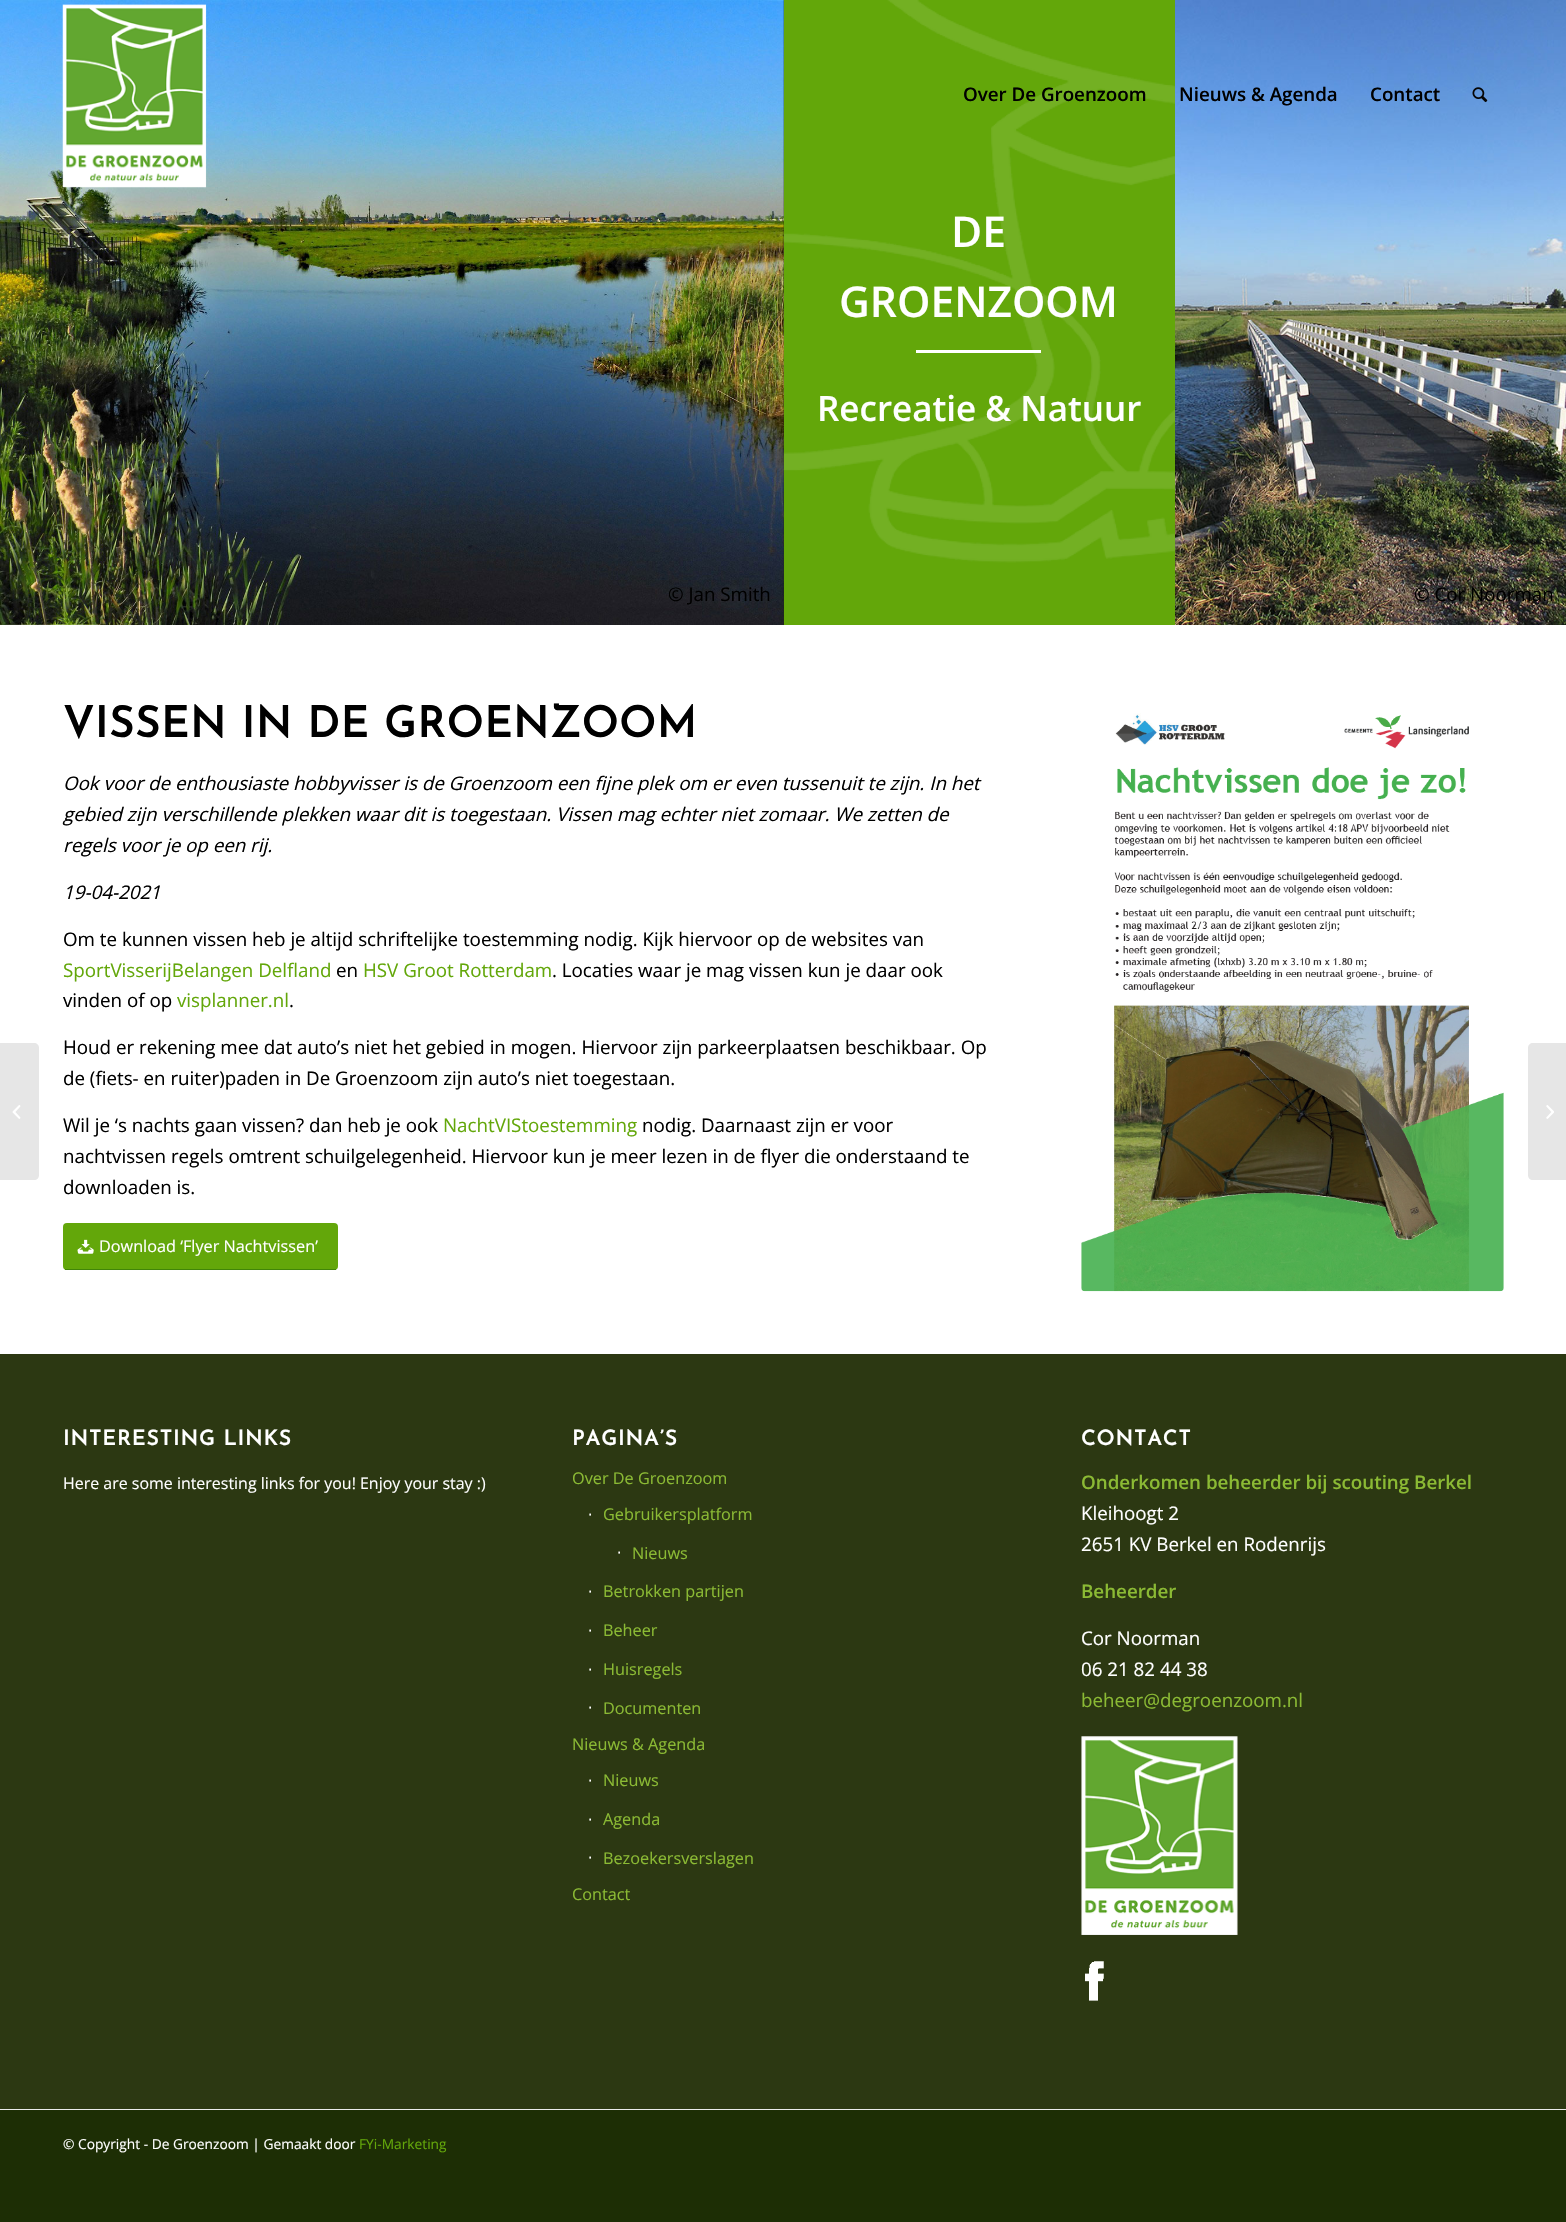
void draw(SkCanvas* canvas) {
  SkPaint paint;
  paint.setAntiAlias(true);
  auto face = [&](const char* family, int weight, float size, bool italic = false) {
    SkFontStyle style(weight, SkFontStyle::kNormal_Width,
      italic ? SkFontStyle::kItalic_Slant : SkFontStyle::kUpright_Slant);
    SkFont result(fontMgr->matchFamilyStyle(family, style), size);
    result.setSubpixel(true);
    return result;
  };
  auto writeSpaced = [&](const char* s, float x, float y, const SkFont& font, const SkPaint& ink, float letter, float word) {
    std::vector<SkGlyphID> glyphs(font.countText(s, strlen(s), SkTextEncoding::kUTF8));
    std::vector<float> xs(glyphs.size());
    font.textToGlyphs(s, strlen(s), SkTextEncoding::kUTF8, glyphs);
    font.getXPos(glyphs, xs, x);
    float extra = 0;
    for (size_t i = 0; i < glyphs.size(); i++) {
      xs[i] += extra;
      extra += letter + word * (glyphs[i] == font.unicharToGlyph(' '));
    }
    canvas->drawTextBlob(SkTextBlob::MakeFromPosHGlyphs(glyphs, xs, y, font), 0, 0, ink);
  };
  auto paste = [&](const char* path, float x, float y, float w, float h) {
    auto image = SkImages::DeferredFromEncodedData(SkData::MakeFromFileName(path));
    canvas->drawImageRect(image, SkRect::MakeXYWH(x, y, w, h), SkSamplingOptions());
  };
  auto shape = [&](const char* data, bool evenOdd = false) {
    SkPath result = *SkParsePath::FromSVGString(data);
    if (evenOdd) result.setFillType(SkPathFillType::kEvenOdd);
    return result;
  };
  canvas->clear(0xff1d2e05);
  paste("img/5.png", 0, 0, 784, 625);
  paste("img/1.png", 62, 4, 145, 184);
  paste("img/6.png", 1175, 0, 391, 625);
  paste("img/2.png", 1472, 87, 16, 16);
  paint.setColor(0xffffffff);
  canvas->drawRect(SkRect::MakeXYWH(0, 625, 1566, 729), paint);
  paint.setColor(0xffe6e6e6);
  canvas->drawPath(shape("M0 1043H34C37 1043 39 1045 39 1048V1175C39 1178 37 1180 34 1180H0Z"), paint);
  paste("img/3.png", 12, 1105, 9, 14);
  paint.setColor(0xff63a70a);
  canvas->drawRect(SkRect::MakeXYWH(784, 0, 391, 625), paint);
  paste("img/4.png", 783, 0, 392, 563);
  paint.setColor(0xffffffff);
  canvas->drawRect(SkRect::MakeXYWH(916, 350, 125, 3), paint);
  paint.setColor(0xff63a70a);
  canvas->drawRoundRect(SkRect::MakeXYWH(63, 1223, 275, 47), 4, 4, paint);
  paint.setColor(0xff418508);
  canvas->drawRect(SkRect::MakeXYWH(65, 1269, 271, 1), paint);
  paste("img/7.png", 77, 1239, 17, 15);
  paste("img/8.png", 1081, 713, 423, 579);
  paint.setColor(0xff2c3812);
  canvas->drawRect(SkRect::MakeXYWH(0, 1354, 1566, 755), paint);
  paste("img/9.png", 1081, 1736, 157, 199);
  paste("img/10.png", 1085, 1961, 19, 40);
  paint.setColor(0xffebebeb);
  canvas->drawRect(SkRect::MakeXYWH(0, 2109, 1566, 1), paint);
  paint.setColor(0xffe6e6e6);
  canvas->drawPath(shape("M1533 1043H1566V1180H1533C1530 1180 1528 1178 1528 1175V1048C1528 1045 1530 1043 1533 1043Z"), paint);
  paste("img/11.png", 1546, 1105, 8, 14);
  auto f0 = face("Open Sans", 600, 18.75f);
  paint.setColor(0xff000000);
  {
    const struct { const char* s; float x, y; } items[] = {
      {"Over De Groenzoom", 963, 101},
      {"Nieuws & Agenda", 1179, 101},
      {"Contact", 1370, 101},
    };
    for (auto [s, x, y] : items) {
      canvas->drawString(s, x, y, f0, paint);
    }
  }
  auto f1 = face("Open Sans", 600, 42.5f);
  paint.setColor(0xffffffff);
  canvas->drawString("DE", 951, 247, f1, paint);
  canvas->drawString("GROENZOOM", 839, 317, f1, paint);
  auto f2 = face("Open Sans", 600, 35);
  canvas->drawString("Recreatie & Natuur", 817, 421, f2, paint);
  auto f3 = face("Open Sans", 400, 18.75f);
  paint.setColor(0xff000000);
  canvas->drawString("© Jan Smith", 668, 601, f3, paint);
  canvas->drawString("© Cor Noorman", 1414, 601, f3, paint);
  auto f4 = face("Josefin Sans", 700, 42.5f);
  writeSpaced("VISSEN IN DE GROENZOOM", 63, 737, f4, paint, 1.25f, 0);
  auto f5 = face("Open Sans", 400, 18.75f, true);
  {
    const struct { const char* s; float x, y; } items[] = {
      {"Ook voor de enthousiaste hobbyvisser is de Groenzoom een fijne plek om er even tussenuit te zijn. In het", 63, 790},
      {"gebied zijn verschillende plekken waar dit is toegestaan. Vissen mag echter niet zomaar. We zetten de", 63, 821},
      {"regels voor je op een rij.", 63, 852},
      {"19-04-2021", 63, 899},
    };
    for (auto [s, x, y] : items) {
      canvas->drawString(s, x, y, f5, paint);
    }
  }
  canvas->drawString("Om te kunnen vissen heb je altijd schriftelijke toestemming nodig. Kijk hiervoor op de websites van", 63, 946, f3, paint);
  paint.setColor(0xff63a70a);
  canvas->drawString("SportVisserijBelangen Delfland", 63, 977, f3, paint);
  paint.setColor(0xff000000);
  canvas->drawString("en", 336, 977, f3, paint);
  paint.setColor(0xff63a70a);
  canvas->drawString("HSV Groot Rotterdam", 363, 977, f3, paint);
  paint.setColor(0xff000000);
  canvas->drawString(". Locaties waar je mag vissen kun je daar ook", 552, 977, f3, paint);
  canvas->drawString("vinden of op", 63, 1007, f3, paint);
  paint.setColor(0xff63a70a);
  canvas->drawString("visplanner.nl", 177, 1007, f3, paint);
  paint.setColor(0xff000000);
  {
    const struct { const char* s; float x, y; } items[] = {
      {".", 289, 1007},
      {"Houd er rekening mee dat auto’s niet het gebied in mogen. Hiervoor zijn parkeerplaatsen beschikbaar. Op", 63, 1054},
      {"de (fiets- en ruiter)paden in De Groenzoom zijn auto’s niet toegestaan.", 63, 1085},
      {"Wil je ‘s nachts gaan vissen? dan heb je ook", 63, 1132},
    };
    for (auto [s, x, y] : items) {
      canvas->drawString(s, x, y, f3, paint);
    }
  }
  paint.setColor(0xff63a70a);
  canvas->drawString("NachtVIStoestemming", 443, 1132, f3, paint);
  paint.setColor(0xff000000);
  {
    const struct { const char* s; float x, y; } items[] = {
      {"nodig. Daarnaast zijn er voor", 642, 1132},
      {"nachtvissen regels omtrent schuilgelegenheid. Hiervoor kun je meer lezen in de flyer die onderstaand te", 63, 1163},
      {"downloaden is.", 63, 1194},
    };
    for (auto [s, x, y] : items) {
      canvas->drawString(s, x, y, f3, paint);
    }
  }
  auto f6 = face("Open Sans", 400, 16.25f);
  paint.setColor(0xffffffff);
  canvas->drawString("Download ‘Flyer Nachtvissen’", 99, 1252, f6, paint);
  auto f7 = face("Josefin Sans", 700, 20.6f);
  writeSpaced("INTERESTING LINKS", 63, 1445, f7, paint, 1.25f, 0);
  auto f8 = face("Open Sans", 400, 15.95f);
  canvas->drawString("Here are some interesting links for you! Enjoy your stay :)", 63, 1489, f8, paint);
  writeSpaced("PAGINA’S", 572, 1445, f7, paint, 1.25f, 0);
  paint.setColor(0xff8bba34);
  canvas->drawString("Over De Groenzoom", 572, 1484, f6, paint);
  auto f9 = face("Liberation Sans", 400, 16.25f);
  paint.setColor(0xffffffff);
  canvas->drawString("∙", 588, 1519, f9, paint);
  paint.setColor(0xff8bba34);
  canvas->drawString("Gebruikersplatform", 603, 1520, f6, paint);
  paint.setColor(0xffffffff);
  canvas->drawString("∙", 617, 1557, f9, paint);
  paint.setColor(0xff8bba34);
  canvas->drawString("Nieuws", 632, 1559, f6, paint);
  paint.setColor(0xffffffff);
  canvas->drawString("∙", 588, 1596, f9, paint);
  paint.setColor(0xff8bba34);
  canvas->drawString("Betrokken partijen", 603, 1597, f6, paint);
  paint.setColor(0xffffffff);
  canvas->drawString("∙", 588, 1635, f9, paint);
  paint.setColor(0xff8bba34);
  canvas->drawString("Beheer", 603, 1636, f6, paint);
  paint.setColor(0xffffffff);
  canvas->drawString("∙", 588, 1674, f9, paint);
  paint.setColor(0xff8bba34);
  canvas->drawString("Huisregels", 603, 1675, f6, paint);
  paint.setColor(0xffffffff);
  canvas->drawString("∙", 588, 1712, f9, paint);
  paint.setColor(0xff8bba34);
  canvas->drawString("Documenten", 603, 1714, f6, paint);
  canvas->drawString("Nieuws & Agenda", 572, 1750, f6, paint);
  paint.setColor(0xffffffff);
  canvas->drawString("∙", 588, 1785, f9, paint);
  paint.setColor(0xff8bba34);
  canvas->drawString("Nieuws", 603, 1786, f6, paint);
  paint.setColor(0xffffffff);
  canvas->drawString("∙", 588, 1824, f9, paint);
  paint.setColor(0xff8bba34);
  canvas->drawString("Agenda", 603, 1825, f6, paint);
  paint.setColor(0xffffffff);
  canvas->drawString("∙", 588, 1862, f9, paint);
  paint.setColor(0xff8bba34);
  canvas->drawString("Bezoekersverslagen", 603, 1864, f6, paint);
  canvas->drawString("Contact", 572, 1900, f6, paint);
  paint.setColor(0xffffffff);
  writeSpaced("CONTACT", 1081, 1445, f7, paint, 1.25f, 0);
  paint.setColor(0xff8bba34);
  canvas->drawString("Onderkomen beheerder bij scouting Berkel", 1081, 1489, f0, paint);
  paint.setColor(0xffffffff);
  canvas->drawString("Kleihoogt 2", 1081, 1520, f3, paint);
  canvas->drawString("2651 KV Berkel en Rodenrijs", 1081, 1551, f3, paint);
  paint.setColor(0xff8bba34);
  canvas->drawString("Beheerder", 1081, 1598, f0, paint);
  paint.setColor(0xffffffff);
  canvas->drawString("Cor Noorman", 1081, 1645, f3, paint);
  canvas->drawString("06 21 82 44 38", 1081, 1676, f3, paint);
  paint.setColor(0xff8bba34);
  canvas->drawString("beheer@degroenzoom.nl", 1081, 1707, f3, paint);
  auto f10 = face("Open Sans", 400, 13.75f);
  paint.setColor(0xffffffff);
  canvas->drawString("© Copyright - De Groenzoom | Gemaakt door", 63, 2149, f10, paint);
  paint.setColor(0xff63a70a);
  canvas->drawString("FYi-Marketing", 359, 2149, f10, paint);
}
